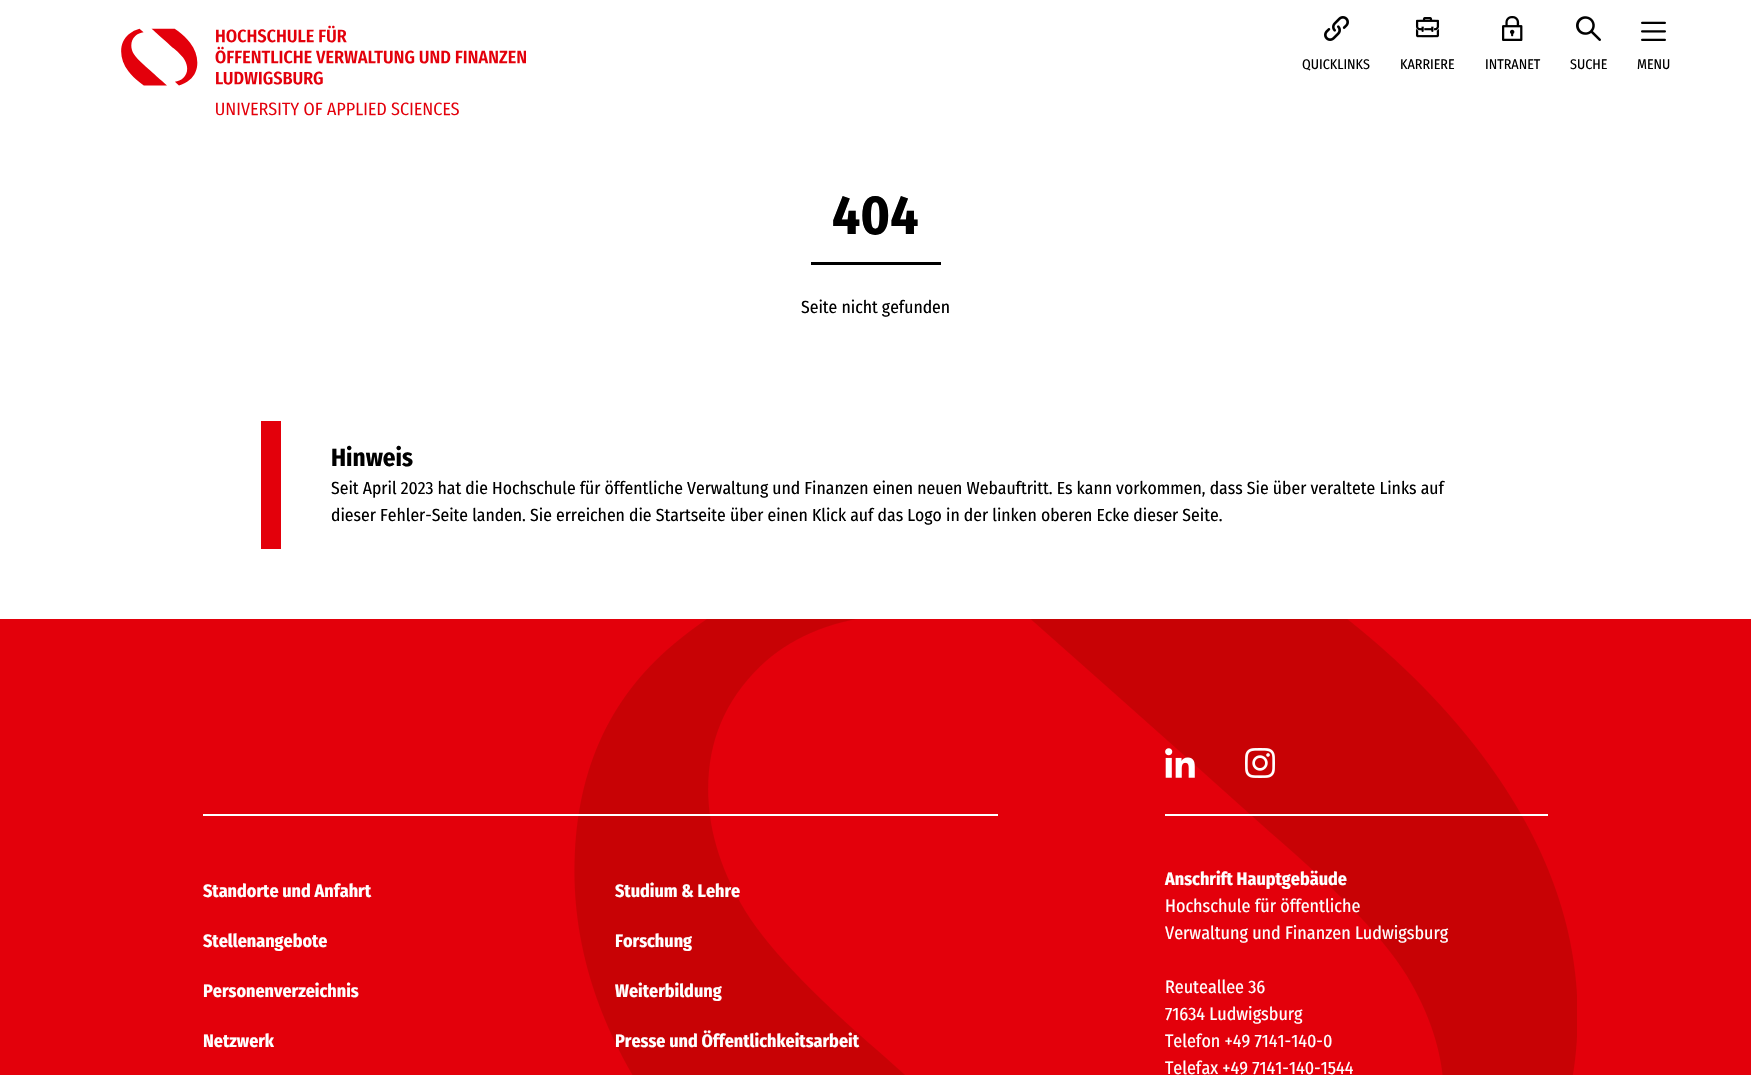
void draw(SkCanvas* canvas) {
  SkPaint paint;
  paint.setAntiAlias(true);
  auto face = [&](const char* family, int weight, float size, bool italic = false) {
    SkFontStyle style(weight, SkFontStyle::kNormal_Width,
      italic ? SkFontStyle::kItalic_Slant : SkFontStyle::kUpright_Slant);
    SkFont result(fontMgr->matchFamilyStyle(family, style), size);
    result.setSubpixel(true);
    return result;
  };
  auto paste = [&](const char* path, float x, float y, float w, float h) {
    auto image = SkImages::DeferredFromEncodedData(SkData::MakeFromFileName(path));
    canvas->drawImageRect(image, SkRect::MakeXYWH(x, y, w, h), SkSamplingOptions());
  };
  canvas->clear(0xffffffff);
  paste("img/1.png", 121, 25, 405, 91);
  paste("img/2.png", 1324, 16, 25, 25);
  paste("img/3.png", 1415, 17, 25, 21);
  paste("img/4.png", 1502, 16, 21, 25);
  paste("img/5.png", 1576, 16, 25, 25);
  paste("img/6.png", 1641, 21, 25, 20);
  {
    const struct { float x, y, w, h; SkColor color; } items[] = {
      {811, 262, 130, 3, 0xff000000},
      {261, 421, 20, 128, 0xffe3000b},
      {0, 619, 1751, 456, 0xffe3000b},
    };
    for (auto [x, y, w, h, color] : items) {
      paint.setColor(color);
      canvas->drawRect(SkRect::MakeXYWH(x, y, w, h), paint);
    }
  }
  paste("img/7.png", 574, 619, 1003, 456);
  paint.setColor(0xffffffff);
  canvas->drawRect(SkRect::MakeXYWH(203, 814, 795, 2), paint);
  paste("img/8.png", 1165, 748, 30, 30);
  paste("img/9.png", 1245, 748, 30, 30);
  canvas->drawRect(SkRect::MakeXYWH(1165, 814, 383, 2), paint);
  auto f0 = face("Fira Sans Condensed", 400, 14);
  paint.setColor(0xff000000);
  {
    const struct { const char* s; float x, y; } items[] = {
      {"QUICKLINKS", 1302, 69},
      {"KARRIERE", 1400, 69},
      {"INTRANET", 1485, 69},
      {"SUCHE", 1570, 69},
      {"MENU", 1637, 69},
    };
    for (auto [s, x, y] : items) {
      canvas->drawString(s, x, y, f0, paint);
    }
  }
  auto f1 = face("Fira Sans Condensed", 700, 55);
  canvas->drawString("404", 832, 234, f1, paint);
  auto f2 = face("Fira Sans Condensed", 400, 17.6f);
  canvas->drawString("Seite nicht gefunden", 801, 313, f2, paint);
  auto f3 = face("Fira Sans Condensed", 700, 25);
  canvas->drawString("Hinweis", 331, 466, f3, paint);
  canvas->drawString("Seit April 2023 hat die Hochschule für öffentliche Verwaltung und Finanzen einen neuen Webauftritt. Es kann vorkommen, dass Sie über veraltete Links auf", 331, 494, f2, paint);
  canvas->drawString("dieser Fehler-Seite landen. Sie erreichen die Startseite über einen Klick auf das Logo in der linken oberen Ecke dieser Seite.", 331, 521, f2, paint);
  auto f4 = face("Fira Sans Condensed", 700, 18);
  paint.setColor(0xffffffff);
  {
    const struct { const char* s; float x, y; } items[] = {
      {"Standorte und Anfahrt", 203, 897},
      {"Stellenangebote", 203, 947},
      {"Personenverzeichnis", 203, 997},
      {"Netzwerk", 203, 1047},
      {"Studium & Lehre", 615, 897},
      {"Forschung", 615, 947},
      {"Weiterbildung", 615, 997},
      {"Presse und Öffentlichkeitsarbeit", 615, 1047},
      {"Anschrift Hauptgebäude", 1165, 885},
    };
    for (auto [s, x, y] : items) {
      canvas->drawString(s, x, y, f4, paint);
    }
  }
  auto f5 = face("Fira Sans Condensed", 400, 18);
  {
    const struct { const char* s; float x, y; } items[] = {
      {"Hochschule für öffentliche", 1165, 912},
      {"Verwaltung und Finanzen Ludwigsburg", 1165, 939},
      {"Reuteallee 36", 1165, 993},
      {"71634 Ludwigsburg", 1165, 1020},
      {"Telefon +49 7141-140-0", 1165, 1047},
      {"Telefax +49 7141-140-1544", 1165, 1074},
    };
    for (auto [s, x, y] : items) {
      canvas->drawString(s, x, y, f5, paint);
    }
  }
}
